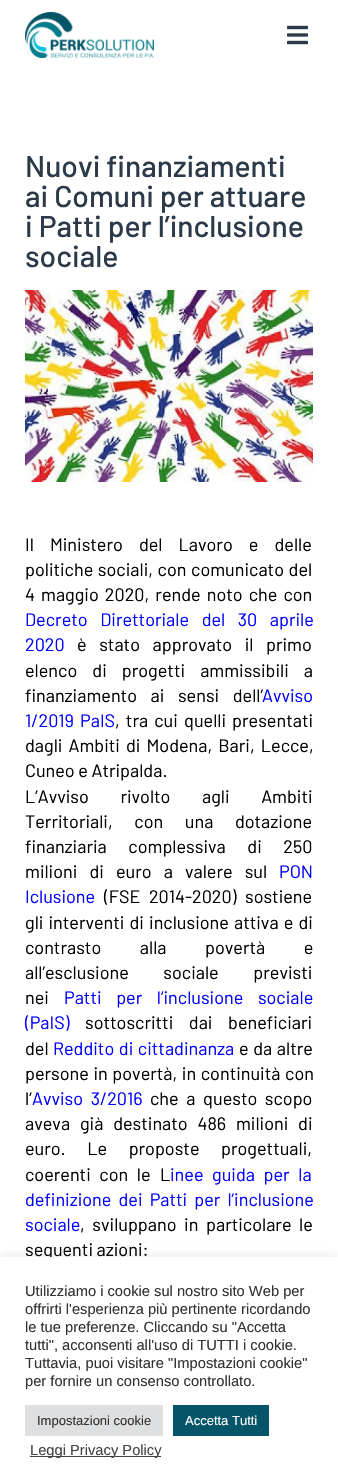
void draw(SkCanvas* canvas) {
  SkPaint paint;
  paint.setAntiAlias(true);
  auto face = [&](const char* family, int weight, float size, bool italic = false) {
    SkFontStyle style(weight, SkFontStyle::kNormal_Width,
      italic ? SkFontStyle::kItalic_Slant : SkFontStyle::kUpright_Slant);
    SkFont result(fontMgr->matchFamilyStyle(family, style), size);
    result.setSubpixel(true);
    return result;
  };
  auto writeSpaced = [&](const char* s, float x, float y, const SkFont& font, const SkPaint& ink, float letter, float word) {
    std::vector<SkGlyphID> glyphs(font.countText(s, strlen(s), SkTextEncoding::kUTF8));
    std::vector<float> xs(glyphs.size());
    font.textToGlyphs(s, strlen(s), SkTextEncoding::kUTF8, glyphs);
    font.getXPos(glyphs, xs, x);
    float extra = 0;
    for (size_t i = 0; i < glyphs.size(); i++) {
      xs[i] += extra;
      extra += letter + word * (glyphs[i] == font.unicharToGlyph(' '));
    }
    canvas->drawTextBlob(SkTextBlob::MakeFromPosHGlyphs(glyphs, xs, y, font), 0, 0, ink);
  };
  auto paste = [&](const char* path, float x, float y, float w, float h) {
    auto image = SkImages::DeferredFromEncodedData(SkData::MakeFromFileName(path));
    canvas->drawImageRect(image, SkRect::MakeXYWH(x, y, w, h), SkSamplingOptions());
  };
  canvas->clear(0xffffffff);
  paste("img/1.png", 25, 12, 129, 46);
  paste("img/2.png", 287, 25, 21, 20);
  paste("img/3.png", 25, 290, 288, 192);
  paint.setColor(0x4dacabab);
  paint.setMaskFilter(SkMaskFilter::MakeBlur(kNormal_SkBlurStyle, 5));
  canvas->drawRect(SkRect::MakeXYWH(0, 1256, 338, 227), paint);
  paint.setMaskFilter(nullptr);
  auto f0 = face("Barlow", 500, 30);
  paint.setColor(0xff2b3948);
  {
    const struct { const char* s; float x, y; } items[] = {
      {"Nuovi finanziamenti", 25, 177},
      {"ai Comuni per attuare", 25, 207},
      {"i Patti per l’inclusione", 25, 237},
      {"sociale", 25, 267},
    };
    for (auto [s, x, y] : items) {
      canvas->drawString(s, x, y, f0, paint);
    }
  }
  auto f1 = face("Barlow", 400, 18);
  paint.setColor(0xff000000);
  writeSpaced("Il Ministero del Lavoro e delle", 25, 551, f1, paint, 0, 12.5f);
  writeSpaced("politiche sociali, con comunicato del", 25, 576, f1, paint, 0, 1);
  writeSpaced("4 maggio 2020, rende noto che con", 25, 601, f1, paint, 0, 2.5f);
  paint.setColor(0xff0000ff);
  writeSpaced("Decreto Direttoriale del 30 aprile", 25, 626, f1, paint, 0, 9);
  canvas->drawString("2020", 25, 651, f1, paint);
  paint.setColor(0xff000000);
  writeSpaced("è stato approvato il primo", 77, 651, f1, paint, 0, 9);
  writeSpaced("elenco di progetti ammissibili a", 25, 677, f1, paint, 0, 11.5f);
  writeSpaced("finanziamento ai sensi dell’", 25, 702, f1, paint, 0, 10);
  paint.setColor(0xff0000ff);
  canvas->drawString("Avviso", 262, 702, f1, paint);
  writeSpaced("1/2019 PaIS", 25, 727, f1, paint, 0, 2.5f);
  paint.setColor(0xff000000);
  writeSpaced(", tra cui quelli presentati", 115, 727, f1, paint, 0, 2.5f);
  writeSpaced("dagli Ambiti di Modena, Bari, Lecce,", 25, 752, f1, paint, 0, 2.5f);
  canvas->drawString("Cuneo e Atripalda.", 25, 777, f1, paint);
  writeSpaced("L’Avviso rivolto agli Ambiti", 25, 803, f1, paint, 0, 28);
  writeSpaced("Territoriali, con una dotazione", 25, 828, f1, paint, 0, 18);
  writeSpaced("finanziaria complessiva di 250", 25, 853, f1, paint, 0, 18);
  writeSpaced("milioni di euro a valere sul", 25, 878, f1, paint, 0, 8.5f);
  paint.setColor(0xff0000ff);
  canvas->drawString("PON", 279, 878, f1, paint);
  canvas->drawString("Iclusione", 25, 903, f1, paint);
  paint.setColor(0xff000000);
  writeSpaced("(FSE 2014-2020) sostiene", 104, 903, f1, paint, 0, 5);
  writeSpaced("gli interventi di inclusione attiva e di", 25, 929, f1, paint, 0, 1.5f);
  writeSpaced("contrasto alla povertà e", 25, 954, f1, paint, 0, 35);
  writeSpaced("all’esclusione sociale previsti", 25, 979, f1, paint, 0, 31);
  canvas->drawString("nei", 25, 1004, f1, paint);
  paint.setColor(0xff0000ff);
  writeSpaced("Patti per l’inclusione sociale", 64, 1004, f1, paint, 0, 11);
  canvas->drawString("(PaIS)", 25, 1029, f1, paint);
  paint.setColor(0xff000000);
  writeSpaced("sottoscritti dai beneficiari", 85, 1029, f1, paint, 0, 12);
  canvas->drawString("del", 25, 1055, f1, paint);
  paint.setColor(0xff0000ff);
  writeSpaced("Reddito di cittadinanza", 53, 1055, f1, paint, 0, 1);
  paint.setColor(0xff000000);
  writeSpaced("e da altre", 239, 1055, f1, paint, 0, 1);
  writeSpaced("persone in povertà, in continuità con", 25, 1080, f1, paint, 0, 1);
  canvas->drawString("l’", 25, 1105, f1, paint);
  paint.setColor(0xff0000ff);
  writeSpaced("Avviso 3/2016", 32, 1105, f1, paint, 0, 4);
  paint.setColor(0xff000000);
  writeSpaced("che a questo scopo", 150, 1105, f1, paint, 0, 4);
  writeSpaced("aveva già destinato 486 milioni di", 25, 1130, f1, paint, 0, 6.25f);
  writeSpaced("euro. Le proposte progettuali,", 25, 1155, f1, paint, 0, 18);
  writeSpaced("coerenti con le", 25, 1181, f1, paint, 0, 5);
  canvas->drawString("L", 160, 1181, f1, paint);
  paint.setColor(0xff0000ff);
  writeSpaced("inee guida per la", 170, 1181, f1, paint, 0, 5);
  writeSpaced("definizione dei Patti per l’inclusione", 25, 1206, f1, paint, 0, 3.5f);
  canvas->drawString("sociale", 25, 1231, f1, paint);
  paint.setColor(0xff000000);
  writeSpaced(", sviluppano in particolare le", 80, 1231, f1, paint, 0, 4);
  canvas->drawString("seguenti azioni:", 25, 1256, f1, paint);
  paint.setColor(0xffffffff);
  canvas->drawRect(SkRect::MakeXYWH(0, 1257, 338, 227), paint);
  auto f2 = face("Liberation Sans", 400, 14.7f);
  paint.setColor(0xff333333);
  {
    const struct { const char* s; float x, y; } items[] = {
      {"Utilizziamo i cookie sul nostro sito Web per", 25, 1296},
      {"offrirti l'esperienza più pertinente ricordando", 25, 1314},
      {"le tue preferenze. Cliccando su \"Accetta", 25, 1332},
      {"tutti\", acconsenti all'uso di TUTTI i cookie.", 25, 1350},
      {"Tuttavia, puoi visitare \"Impostazioni cookie\"", 25, 1368},
      {"per fornire un consenso controllato.", 25, 1386},
    };
    for (auto [s, x, y] : items) {
      canvas->drawString(s, x, y, f2, paint);
    }
  }
  paint.setColor(0xffdedfe0);
  canvas->drawRect(SkRect::MakeXYWH(25, 1405, 138, 31), paint);
  auto f3 = face("Liberation Sans", 400, 13);
  paint.setColor(0xff333333);
  canvas->drawString("Impostazioni cookie", 37, 1425, f3, paint);
  paint.setColor(0xff035567);
  canvas->drawRect(SkRect::MakeXYWH(173, 1405, 96, 31), paint);
  paint.setColor(0xffffffff);
  canvas->drawString("Accetta Tutti", 185, 1425, f3, paint);
  paint.setColor(0xff444444);
  canvas->drawRect(SkRect::MakeXYWH(30, 1456, 131, 1), paint);
  canvas->drawString("Leggi Privacy Policy", 30, 1455, f2, paint);
}
